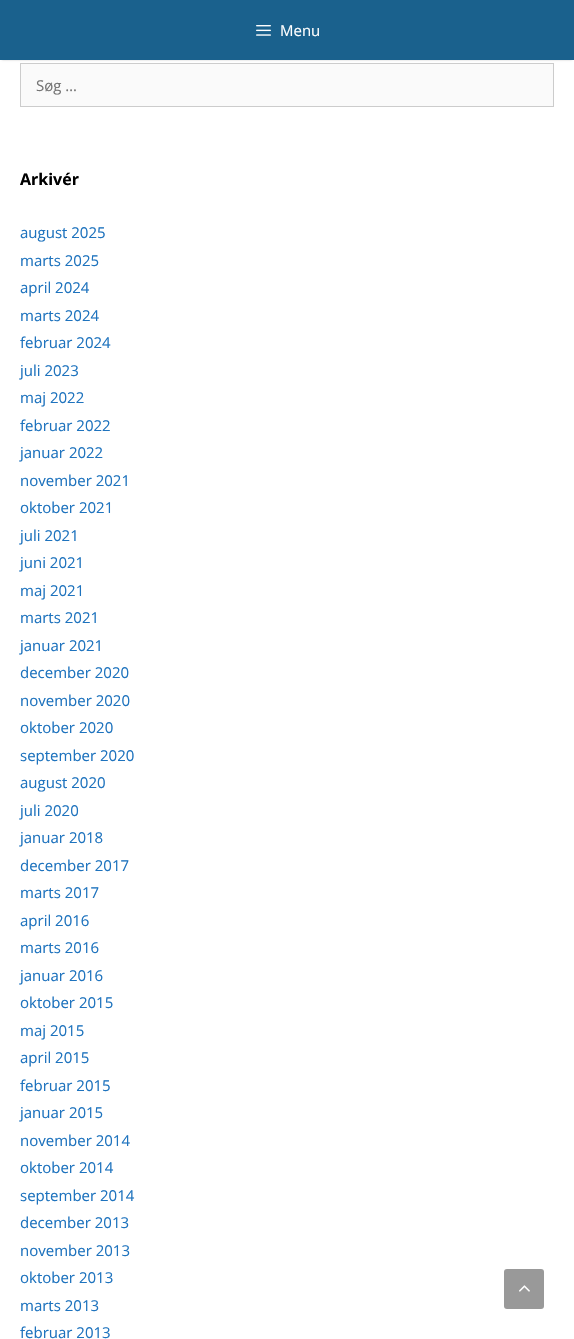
void draw(SkCanvas* canvas) {
  SkPaint paint;
  paint.setAntiAlias(true);
  auto face = [&](const char* family, int weight, float size, bool italic = false) {
    SkFontStyle style(weight, SkFontStyle::kNormal_Width,
      italic ? SkFontStyle::kItalic_Slant : SkFontStyle::kUpright_Slant);
    SkFont result(fontMgr->matchFamilyStyle(family, style), size);
    result.setSubpixel(true);
    return result;
  };
  auto paste = [&](const char* path, float x, float y, float w, float h) {
    auto image = SkImages::DeferredFromEncodedData(SkData::MakeFromFileName(path));
    canvas->drawImageRect(image, SkRect::MakeXYWH(x, y, w, h), SkSamplingOptions());
  };
  canvas->clear(0xffffffff);
  paint.setColor(0xfffafafa);
  canvas->drawRect(SkRect::MakeXYWH(20.5f, 63.5f, 533, 43), paint);
  paint.setStroke(true);
  paint.setStrokeWidth(1);
  paint.setColor(0xffcccccc);
  canvas->drawRect(SkRect::MakeXYWH(20.5f, 63.5f, 533, 43), paint);
  paint.setStroke(false);
  paint.setColor(0x33000000);
  paint.setMaskFilter(SkMaskFilter::MakeBlur(kNormal_SkBlurStyle, 1));
  canvas->drawRect(SkRect::MakeXYWH(2, 4, 570, 56), paint);
  paint.setMaskFilter(nullptr);
  paint.setColor(0xff1a618d);
  canvas->drawRect(SkRect::MakeXYWH(0, 0, 574, 60), paint);
  paste("img/1.png", 256, 25, 15, 11);
  paint.setColor(0xff999999);
  canvas->drawRoundRect(SkRect::MakeXYWH(504, 1269, 40, 40), 3, 3, paint);
  paste("img/2.png", 519, 1285, 11, 7);
  auto f0 = face("Open Sans", 400, 15);
  paint.setColor(0xffffffff);
  canvas->drawString("Menu", 280, 36, f0, paint);
  paint.setColor(0xff757575);
  canvas->drawString("Søg …", 36, 91, f0, paint);
  auto f1 = face("Open Sans", 700, 16);
  paint.setColor(0xff000000);
  canvas->drawString("Arkivér", 20, 185, f1, paint);
  paint.setColor(0xff1e73be);
  {
    const struct { const char* s; float x, y; } items[] = {
      {"august 2025", 20, 238},
      {"marts 2025", 20, 266},
      {"april 2024", 20, 293},
      {"marts 2024", 20, 321},
      {"februar 2024", 20, 348},
      {"juli 2023", 20, 376},
      {"maj 2022", 20, 403},
      {"februar 2022", 20, 431},
      {"januar 2022", 20, 458},
      {"november 2021", 20, 486},
      {"oktober 2021", 20, 513},
      {"juli 2021", 20, 541},
      {"juni 2021", 20, 568},
      {"maj 2021", 20, 596},
      {"marts 2021", 20, 623},
      {"januar 2021", 20, 651},
      {"december 2020", 20, 678},
      {"november 2020", 20, 706},
      {"oktober 2020", 20, 733},
      {"september 2020", 20, 761},
      {"august 2020", 20, 788},
      {"juli 2020", 20, 816},
      {"januar 2018", 20, 843},
      {"december 2017", 20, 871},
      {"marts 2017", 20, 898},
      {"april 2016", 20, 926},
      {"marts 2016", 20, 953},
      {"januar 2016", 20, 981},
      {"oktober 2015", 20, 1008},
      {"maj 2015", 20, 1036},
      {"april 2015", 20, 1063},
      {"februar 2015", 20, 1091},
      {"januar 2015", 20, 1118},
      {"november 2014", 20, 1146},
      {"oktober 2014", 20, 1173},
      {"september 2014", 20, 1201},
      {"december 2013", 20, 1228},
      {"november 2013", 20, 1256},
      {"oktober 2013", 20, 1283},
      {"marts 2013", 20, 1311},
      {"februar 2013", 20, 1338},
    };
    for (auto [s, x, y] : items) {
      canvas->drawString(s, x, y, f0, paint);
    }
  }
}
